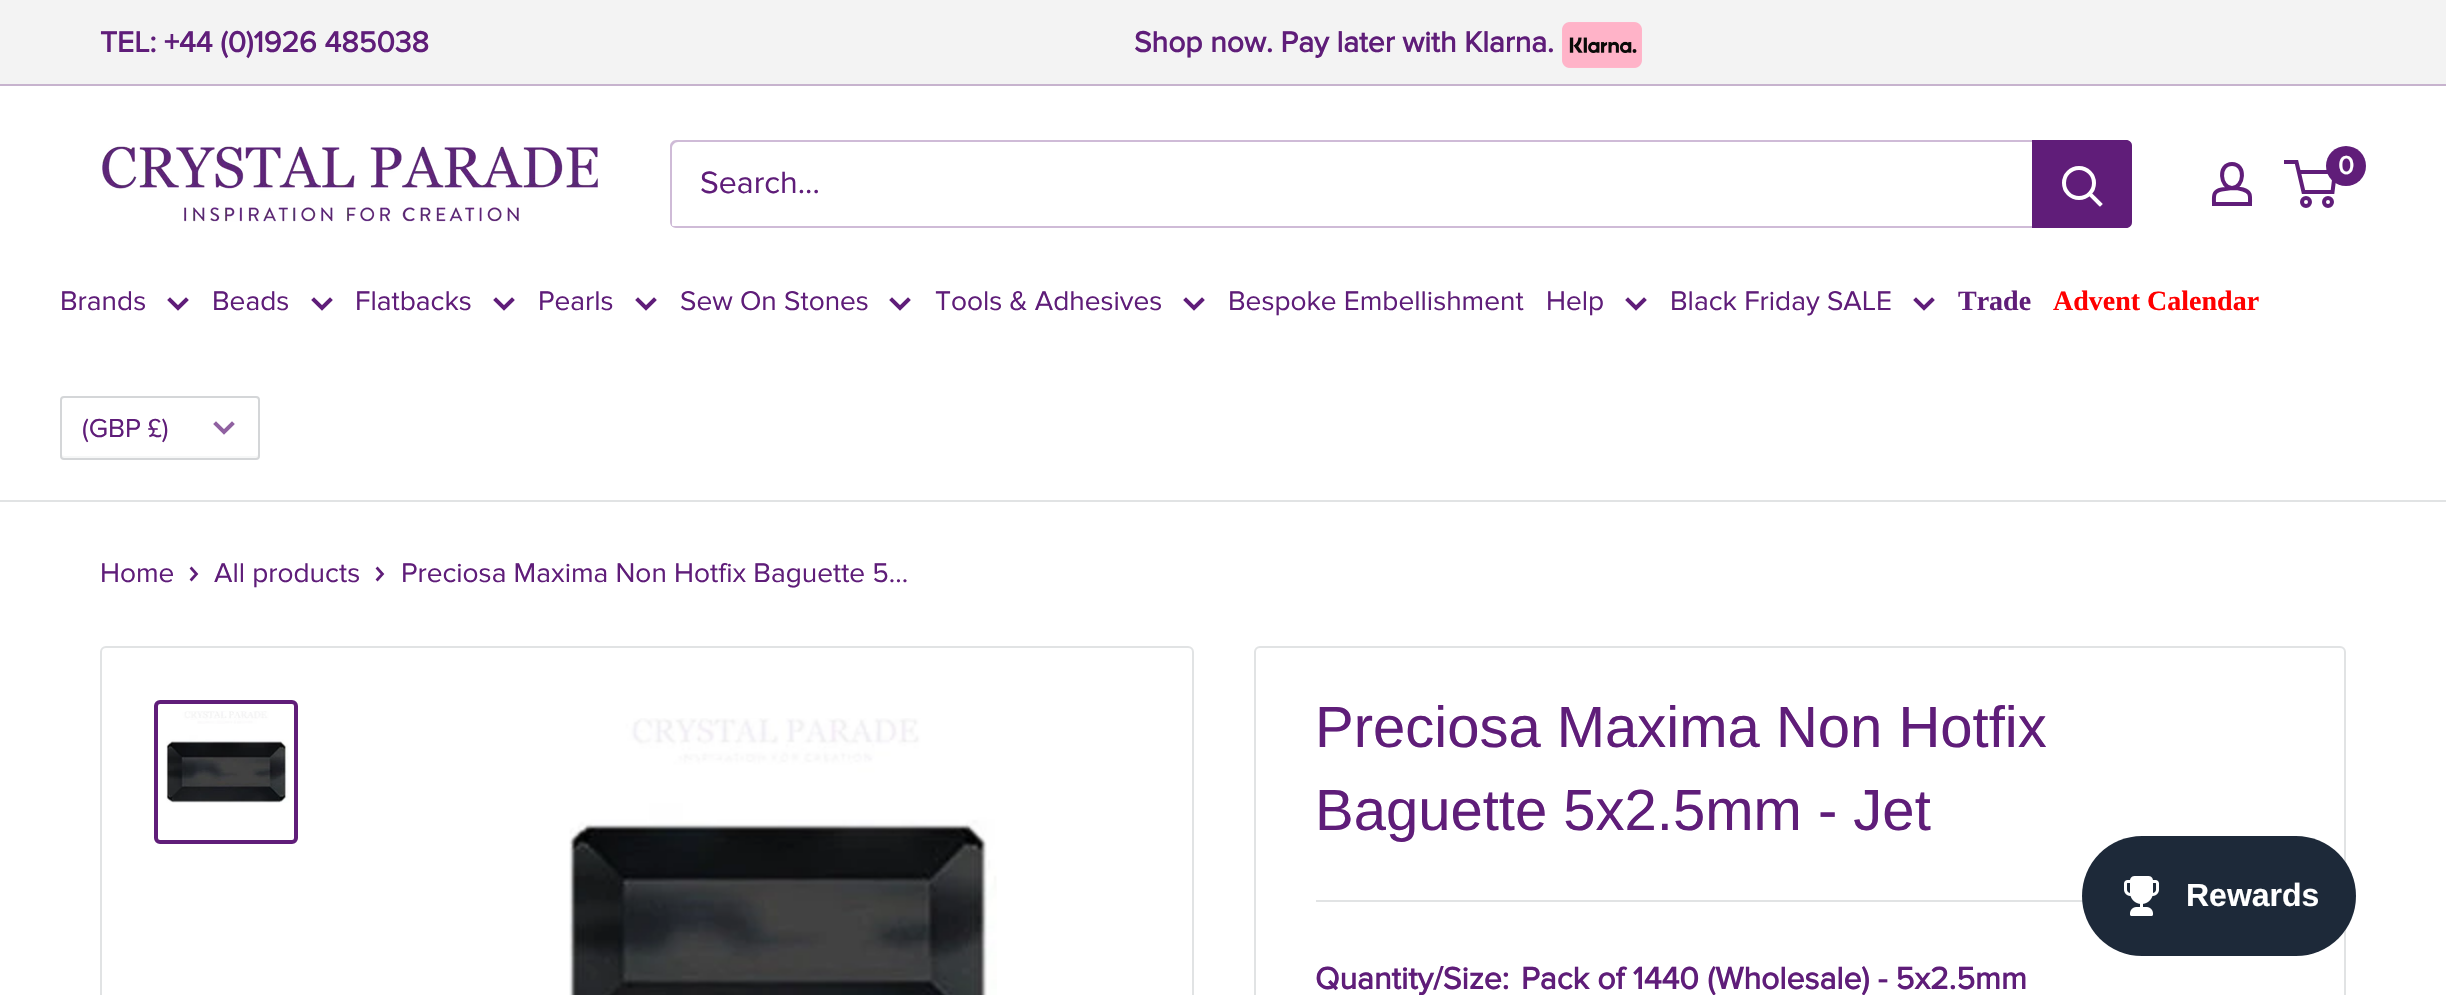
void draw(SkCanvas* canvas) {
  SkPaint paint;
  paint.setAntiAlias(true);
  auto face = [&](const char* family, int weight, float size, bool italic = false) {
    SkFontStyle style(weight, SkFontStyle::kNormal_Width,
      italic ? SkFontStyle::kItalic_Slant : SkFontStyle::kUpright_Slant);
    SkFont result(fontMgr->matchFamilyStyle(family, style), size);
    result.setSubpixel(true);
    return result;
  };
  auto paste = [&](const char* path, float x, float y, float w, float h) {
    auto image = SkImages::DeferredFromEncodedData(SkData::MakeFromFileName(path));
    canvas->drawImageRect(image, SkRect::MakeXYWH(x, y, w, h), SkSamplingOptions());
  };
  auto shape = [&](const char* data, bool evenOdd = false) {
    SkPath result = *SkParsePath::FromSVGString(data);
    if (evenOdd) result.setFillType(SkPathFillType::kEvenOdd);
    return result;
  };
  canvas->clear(0xffffffff);
  paint.setColor(0xfff3f3f3);
  canvas->drawRect(SkRect::MakeXYWH(0, 0, 2446, 84), paint);
  paint.setColor(0xffc7b3ce);
  canvas->drawRect(SkRect::MakeXYWH(0, 84, 2446, 2), paint);
  paste("img/1.png", 1562, 22, 80, 46);
  paste("img/2.png", 100, 146, 498, 76);
  paint.setStroke(true);
  paint.setStrokeWidth(4);
  paint.setColor(0xff601d79);
  canvas->drawPath(shape("M2232 188C2236 188 2239.5 188.5 2243 189.5C2251.5 192 2250 196.5 2250 204H2214C2214 196 2212.5 191.5 2221.5 189.5ZM2232 188C2220 188 2217.5 164 2232 164C2246.5 164 2244 188 2232 188Z"), paint);
  canvas->drawCircle(2306, 202, 4, paint);
  canvas->drawCircle(2328, 202, 4, paint);
  canvas->drawPath(shape("M2298.5 172H2335L2332.5 192H2303.5L2296.5 162H2284"), paint);
  paint.setStroke(false);
  canvas->drawCircle(2346, 166, 20, paint);
  paint.setColor(0xffcfbbd7);
  canvas->drawPath(shape("M671 225C672 227 674 228 676 228H2126C2129 228 2132 225 2132 222V146C2132 144 2131 142 2129 141C2130 142 2130 143 2130 144V220C2130 223 2127 226 2124 226H674C673 226 672 226 671 225Z"), paint);
  paint.setColor(0x4d601d79);
  canvas->drawPath(shape("M678 142H2128L2131 143C2130 141 2128 140 2126 140H676C673 140 670 143 670 146V222C670 224 671 226 673 227C672 226 672 225 672 224V148C672 145 675 142 678 142Z"), paint);
  paint.setColor(0xff601d79);
  canvas->drawPath(shape("M2032 140H2126C2129.5 140 2132 142.5 2132 146V222C2132 225.5 2129.5 228 2126 228H2032Z"), paint);
  paint.setStroke(true);
  paint.setStrokeCap(SkPaint::kSquare_Cap);
  paint.setColor(0xffffffff);
  canvas->drawPath(shape("M2100 204L2090 194"), paint);
  paint.setStrokeCap(SkPaint::kButt_Cap);
  canvas->drawCircle(2079, 183, 15, paint);
  paint.setStroke(false);
  paint.setColor(0xffe1e3e4);
  canvas->drawRect(SkRect::MakeXYWH(0, 500, 2446, 2), paint);
  paint.setStroke(true);
  paint.setStrokeCap(SkPaint::kSquare_Cap);
  paint.setColor(0xff5f1d79);
  canvas->drawPath(shape("M186 300L178 308L170 300"), paint);
  canvas->drawPath(shape("M330 300L322 308L314 300"), paint);
  canvas->drawPath(shape("M512 300L504 308L496 300"), paint);
  canvas->drawPath(shape("M654 300L646 308L638 300"), paint);
  canvas->drawPath(shape("M908 300L900 308L892 300"), paint);
  canvas->drawPath(shape("M1202 300L1194 308L1186 300"), paint);
  canvas->drawPath(shape("M1644 300L1636 308L1628 300"), paint);
  canvas->drawPath(shape("M1932 300L1924 308L1916 300"), paint);
  paint.setStroke(false);
  paint.setColor(0xfff6f7f7);
  canvas->drawPath(shape("M62 454C62 456 62 458 64 458H256C258 458 258 456 258 454C258 455 257 456 256 456H64L62 455Z"), paint);
  paint.setStroke(true);
  paint.setStrokeWidth(2);
  paint.setStrokeCap(SkPaint::kButt_Cap);
  paint.setColor(0xffd4d6d8);
  canvas->drawRoundRect(SkRect::MakeXYWH(61, 397, 198, 62), 3, 3, paint);
  paint.setStrokeWidth(4);
  paint.setStrokeCap(SkPaint::kSquare_Cap);
  paint.setColor(0xff9061a1);
  canvas->drawPath(shape("M232 424L224 432L216 424"), paint);
  paint.setStrokeWidth(2.7f);
  paint.setColor(0xff5f1d79);
  canvas->drawPath(shape("M191.5 568.5L196.5 574L191.5 579.5"), paint);
  canvas->drawPath(shape("M377.5 568.5L382.5 574L377.5 579.5"), paint);
  paint.setStrokeWidth(2);
  paint.setStrokeCap(SkPaint::kButt_Cap);
  paint.setColor(0xffe1e3e4);
  canvas->drawRoundRect(SkRect::MakeXYWH(101, 647, 1092, 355), 5, 5, paint);
  paint.setStrokeWidth(4);
  paint.setColor(0xff601d79);
  canvas->drawRoundRect(SkRect::MakeXYWH(156, 702, 140, 140), 4, 4, paint);
  paste("img/3.png", 166, 711, 124, 92);
  paste("img/4.png", 569, 718, 428, 277);
  paint.setStrokeWidth(2);
  paint.setColor(0xffe1e3e4);
  canvas->drawRoundRect(SkRect::MakeXYWH(1255, 647, 1090, 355), 5, 5, paint);
  paint.setStroke(false);
  canvas->drawRect(SkRect::MakeXYWH(1316, 900, 767, 2), paint);
  paint.setColor(0xff1d2939);
  canvas->drawRoundRect(SkRect::MakeXYWH(2082, 836, 274, 120), 60, 60, paint);
  paste("img/5.png", 2124, 876, 35, 40);
  auto f0 = face("Proxima Nova", 700, 30);
  paint.setColor(0xff5f1d79);
  canvas->drawString("TEL: +44 (0)1926 485038", 100, 52, f0, paint);
  canvas->drawString("Shop now. Pay later with Klarna.", 1134, 52, f0, paint);
  auto f1 = face("Proxima Nova", 700, 26);
  paint.setColor(0xffffffff);
  canvas->drawString("0", 2338, 174, f1, paint);
  auto f2 = face("Proxima Nova", 400, 32);
  paint.setColor(0xff5f1d79);
  canvas->drawString("Search...", 700, 193, f2, paint);
  auto f3 = face("Proxima Nova", 400, 28);
  {
    const struct { const char* s; float x, y; } items[] = {
      {"Brands", 60, 310},
      {"Beads", 212, 310},
      {"Flatbacks", 355, 310},
      {"Pearls", 538, 310},
      {"Sew On Stones", 680, 310},
      {"Tools & Adhesives", 935, 310},
      {"Bespoke Embellishment", 1228, 310},
      {"Help", 1546, 310},
      {"Black Friday SALE", 1670, 310},
    };
    for (auto [s, x, y] : items) {
      canvas->drawString(s, x, y, f3, paint);
    }
  }
  auto f4 = face("Liberation Serif", 700, 28);
  canvas->drawString("Trade", 1958, 310, f4, paint);
  paint.setColor(0xffff0000);
  canvas->drawString("Advent Calendar", 2053, 310, f4, paint);
  auto f5 = face("Proxima Nova", 400, 27);
  paint.setColor(0xff5f1d79);
  canvas->drawString("(GBP £)", 82, 437, f5, paint);
  {
    const struct { const char* s; float x, y; } items[] = {
      {"Home", 100, 582},
      {"All products", 214, 582},
      {"Preciosa Maxima Non Hotfix Baguette 5...", 401, 582},
    };
    for (auto [s, x, y] : items) {
      canvas->drawString(s, x, y, f3, paint);
    }
  }
  auto f6 = face("Liberation Sans", 400, 58);
  canvas->drawString("Preciosa Maxima Non Hotfix", 1315, 747, f6, paint);
  canvas->drawString("Baguette 5x2.5mm - Jet", 1315, 830, f6, paint);
  auto f7 = face("Proxima Nova", 700, 32);
  canvas->drawString("Quantity/Size:", 1315, 989, f7, paint);
  canvas->drawString("Pack of 1440 (Wholesale) - 5x2.5mm", 1521, 989, f7, paint);
  auto f8 = face("Liberation Sans", 700, 32);
  paint.setColor(0xffffffff);
  canvas->drawString("Rewards", 2186, 906, f8, paint);
}
